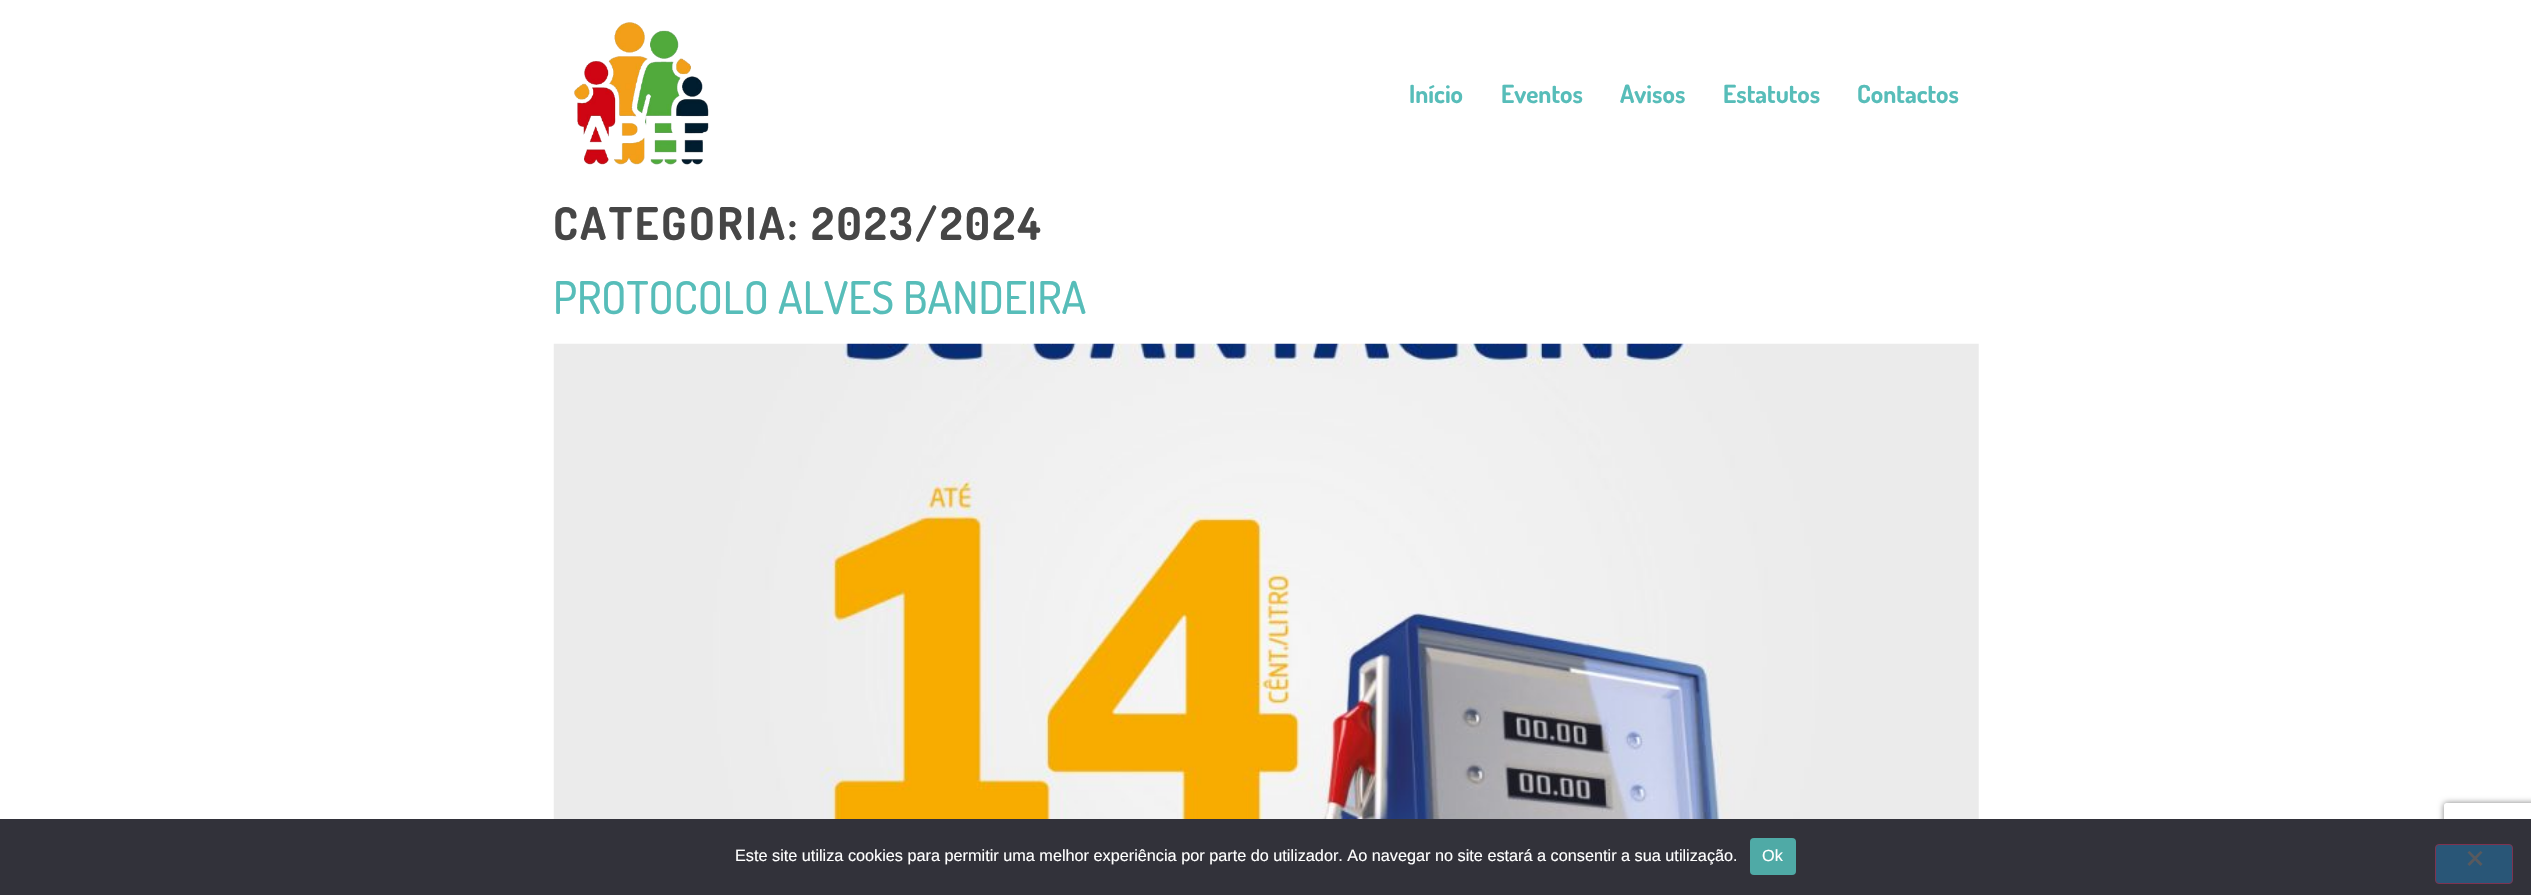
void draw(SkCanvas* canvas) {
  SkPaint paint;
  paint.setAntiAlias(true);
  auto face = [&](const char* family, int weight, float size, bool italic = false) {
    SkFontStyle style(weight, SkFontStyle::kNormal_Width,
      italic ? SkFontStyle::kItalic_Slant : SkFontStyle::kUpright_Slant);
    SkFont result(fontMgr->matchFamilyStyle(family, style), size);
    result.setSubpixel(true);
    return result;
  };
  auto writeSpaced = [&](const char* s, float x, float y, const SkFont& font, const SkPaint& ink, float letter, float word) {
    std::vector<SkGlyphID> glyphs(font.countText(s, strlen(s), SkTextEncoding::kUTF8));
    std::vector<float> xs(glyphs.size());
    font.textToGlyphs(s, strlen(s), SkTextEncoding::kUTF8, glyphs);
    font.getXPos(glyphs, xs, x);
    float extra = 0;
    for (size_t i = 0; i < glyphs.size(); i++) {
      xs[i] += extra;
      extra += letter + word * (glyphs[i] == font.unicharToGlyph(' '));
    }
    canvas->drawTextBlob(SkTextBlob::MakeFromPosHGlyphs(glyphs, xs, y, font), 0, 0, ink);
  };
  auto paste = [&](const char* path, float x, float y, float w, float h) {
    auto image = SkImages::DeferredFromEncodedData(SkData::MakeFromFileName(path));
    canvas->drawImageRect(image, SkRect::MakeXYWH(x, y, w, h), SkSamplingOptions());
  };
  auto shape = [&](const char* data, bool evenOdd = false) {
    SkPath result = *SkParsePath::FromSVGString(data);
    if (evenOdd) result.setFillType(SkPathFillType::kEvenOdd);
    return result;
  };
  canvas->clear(0xffffffff);
  paste("img/1.png", 574, 22, 135, 143);
  paste("img/2.png", 553, 343, 1426, 476);
  canvas->save();
  canvas->clipPath(shape("M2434 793H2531V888H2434ZM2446.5 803H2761.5C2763 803 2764 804 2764 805.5V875.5C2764 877 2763 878 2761.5 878H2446.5C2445 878 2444 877 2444 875.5V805.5C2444 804 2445 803 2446.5 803Z", true), true);
  paint.setColor(0xff808080);
  paint.setMaskFilter(SkMaskFilter::MakeBlur(kNormal_SkBlurStyle, 3));
  canvas->drawRoundRect(SkRect::MakeXYWH(2444, 803, 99, 75), 2.5f, 2.5f, paint);
  paint.setMaskFilter(nullptr);
  canvas->restore();
  paint.setColor(0xff32323a);
  canvas->drawRect(SkRect::MakeXYWH(0, 819, 2531, 76), paint);
  paint.setColor(0xff4faaa6);
  canvas->drawRoundRect(SkRect::MakeXYWH(1750, 838, 46, 37), 4, 4, paint);
  paint.setColor(0xff295677);
  canvas->drawRoundRect(SkRect::MakeXYWH(2435.5f, 844.5f, 77, 39), 3.5f, 3.5f, paint);
  paint.setStroke(true);
  paint.setStrokeWidth(1);
  paint.setColor(0xff7f3350);
  canvas->drawRoundRect(SkRect::MakeXYWH(2435.5f, 844.5f, 77, 39), 3.5f, 3.5f, paint);
  paint.setStroke(false);
  paint.setColor(0xff59595d);
  canvas->drawPath(shape("M2480.5 851L2482.5 852.5L2469.5 866L2467.5 864Z"), paint);
  canvas->drawPath(shape("M2467.5 852.5L2469.5 851L2482.5 864L2480.5 866Z"), paint);
  auto f0 = face("Dosis", 700, 25);
  paint.setColor(0xff57bdb9);
  {
    const struct { const char* s; float x, y; } items[] = {
      {"Início", 1409, 103},
      {"Eventos", 1501, 103},
      {"Avisos", 1620, 103},
      {"Estatutos", 1723, 103},
      {"Contactos", 1857, 103},
    };
    for (auto [s, x, y] : items) {
      canvas->drawString(s, x, y, f0, paint);
    }
  }
  auto f1 = face("Dosis", 700, 45);
  paint.setColor(0xff464646);
  writeSpaced("CATEGORIA: 2023/2024", 553, 240, f1, paint, 2.5f, 0);
  auto f2 = face("Dosis", 500, 45);
  paint.setColor(0xff57bdb9);
  canvas->drawString("PROTOCOLO ALVES BANDEIRA", 553, 314, f2, paint);
  auto f3 = face("Liberation Sans", 400, 16.25f);
  paint.setColor(0xffffffff);
  canvas->drawString("Este site utiliza cookies para permitir uma melhor experiência por parte do utilizador. Ao navegar no site estará a consentir a sua utilização.", 735, 861, f3, paint);
  canvas->drawString("Ok", 1762, 861, f3, paint);
}
